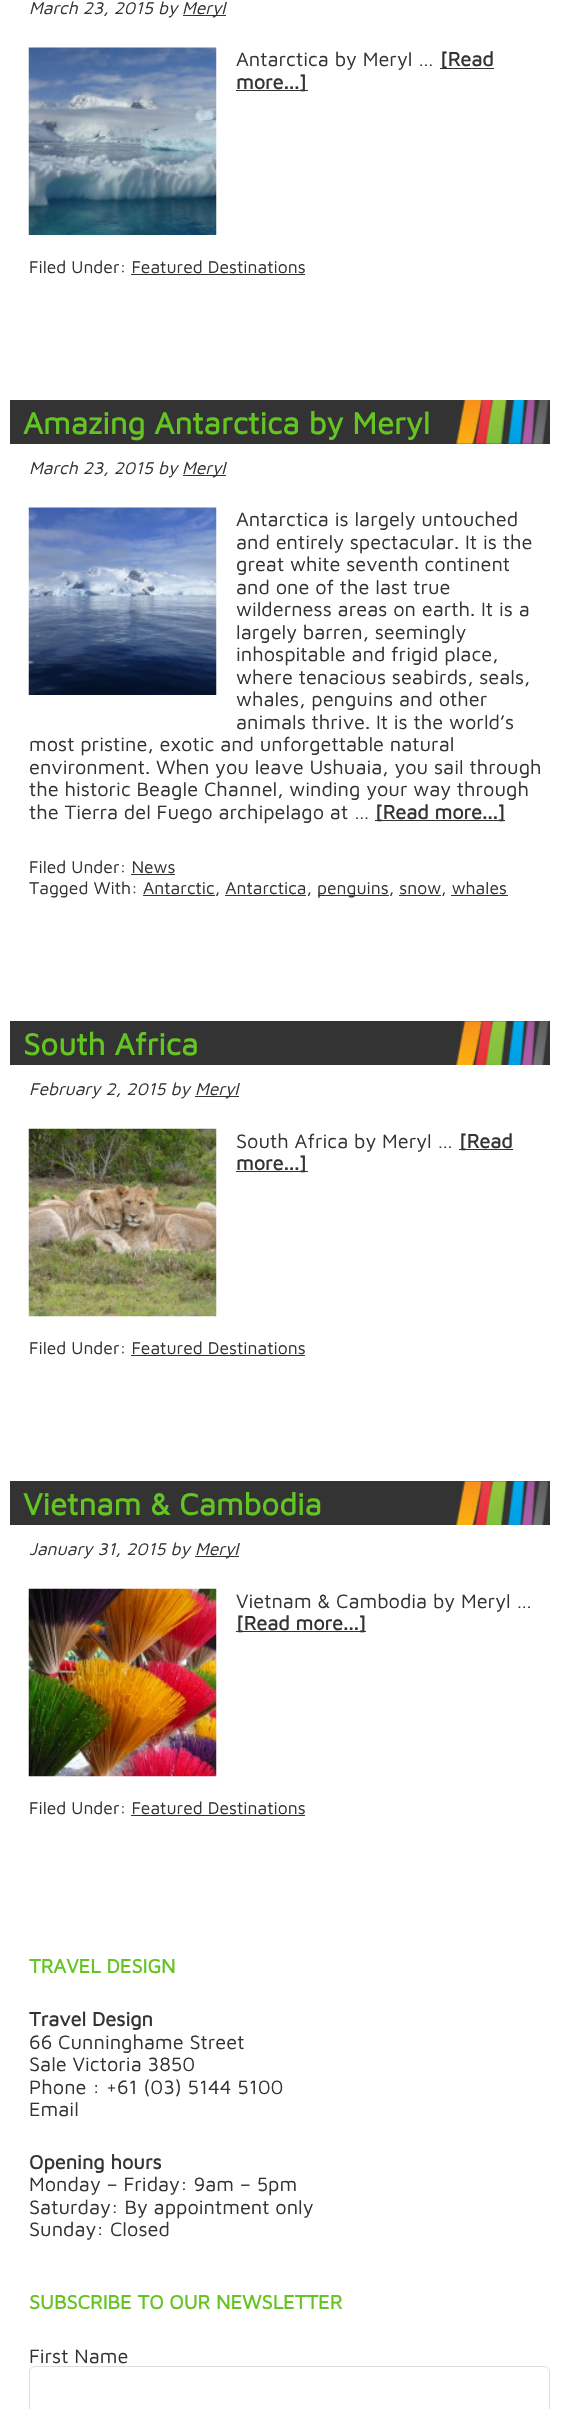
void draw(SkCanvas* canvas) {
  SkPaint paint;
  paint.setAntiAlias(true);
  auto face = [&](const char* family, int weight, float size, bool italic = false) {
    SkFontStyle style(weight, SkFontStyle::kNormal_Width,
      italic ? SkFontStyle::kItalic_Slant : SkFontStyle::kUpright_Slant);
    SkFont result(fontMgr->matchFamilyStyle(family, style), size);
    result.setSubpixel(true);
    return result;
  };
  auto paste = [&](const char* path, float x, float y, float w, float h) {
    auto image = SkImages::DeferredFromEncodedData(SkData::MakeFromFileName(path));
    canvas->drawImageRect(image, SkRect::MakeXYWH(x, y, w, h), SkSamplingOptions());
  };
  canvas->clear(0xffffffff);
  paint.setColor(0xff333333);
  canvas->drawRect(SkRect::MakeXYWH(183, 15, 43, 1), paint);
  paste("img/1.png", 28, 47, 189, 188);
  {
    const struct { float x, y, w, h; SkColor color; } items[] = {
      {440, 68, 54, 1, 0xff333333},
      {236, 90, 72, 1, 0xff333333},
      {131, 274, 174, 1, 0xff333333},
      {10, 400, 540, 44, 0xff333333},
    };
    for (auto [x, y, w, h, color] : items) {
      paint.setColor(color);
      canvas->drawRect(SkRect::MakeXYWH(x, y, w, h), paint);
    }
  }
  paste("img/2.png", 456, 400, 93, 44);
  canvas->drawRect(SkRect::MakeXYWH(183, 475, 43, 1), paint);
  paste("img/3.png", 28, 507, 189, 188);
  {
    const struct { float x, y, w, h; SkColor color; } items[] = {
      {375, 820, 130, 1, 0xff333333},
      {131, 874, 44, 1, 0xff333333},
      {318, 895, 71, 1, 0xff333333},
      {143, 895, 72, 1, 0xff333333},
      {225, 895, 81, 1, 0xff333333},
      {399, 895, 42, 1, 0xff333333},
      {451, 895, 57, 1, 0xff333333},
      {10, 1021, 540, 44, 0xff333333},
    };
    for (auto [x, y, w, h, color] : items) {
      paint.setColor(color);
      canvas->drawRect(SkRect::MakeXYWH(x, y, w, h), paint);
    }
  }
  paste("img/4.png", 456, 1021, 93, 44);
  canvas->drawRect(SkRect::MakeXYWH(195, 1096, 44, 1), paint);
  paste("img/5.png", 28, 1128, 189, 189);
  {
    const struct { float x, y, w, h; SkColor color; } items[] = {
      {459, 1149, 54, 1, 0xff333333},
      {236, 1171, 72, 1, 0xff333333},
      {131, 1355, 174, 1, 0xff333333},
      {10, 1481, 540, 44, 0xff333333},
    };
    for (auto [x, y, w, h, color] : items) {
      paint.setColor(color);
      canvas->drawRect(SkRect::MakeXYWH(x, y, w, h), paint);
    }
  }
  paste("img/4.png", 456, 1481, 93, 44);
  canvas->drawRect(SkRect::MakeXYWH(195, 1556, 44, 1), paint);
  paste("img/6.png", 28, 1588, 189, 189);
  canvas->drawRect(SkRect::MakeXYWH(236, 1631, 130, 1), paint);
  canvas->drawRect(SkRect::MakeXYWH(131, 1815, 174, 1), paint);
  paint.setStroke(true);
  paint.setStrokeWidth(1);
  paint.setColor(0xffdddddd);
  canvas->drawRoundRect(SkRect::MakeXYWH(29.5f, 2366.5f, 520, 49), 5.5f, 5.5f, paint);
  auto f0 = face("Maven Pro", 400, 17.5f, true);
  paint.setStroke(false);
  paint.setColor(0xff333333);
  canvas->drawString("March 23, 2015 by", 29, 14, f0, paint);
  canvas->drawString("Meryl", 182, 14, f0, paint);
  auto f1 = face("Maven Pro", 400, 20);
  canvas->drawString("Antarctica by Meryl …", 236, 66, f1, paint);
  auto f2 = face("Maven Pro", 700, 20);
  canvas->drawString("[Read", 440, 66, f2, paint);
  canvas->drawString("more...]", 236, 89, f2, paint);
  auto f3 = face("Maven Pro", 400, 17.5f);
  canvas->drawString("Filed Under: Featured Destinations", 29, 273, f3, paint);
  auto f4 = face("Maven Pro", 700, 31.25f);
  paint.setColor(0xff63c422);
  canvas->drawString("Amazing Antarctica by Meryl", 23, 434, f4, paint);
  paint.setColor(0xff333333);
  canvas->drawString("March 23, 2015 by", 29, 474, f0, paint);
  canvas->drawString("Meryl", 182, 474, f0, paint);
  {
    const struct { const char* s; float x, y; } items[] = {
      {"Antarctica is largely untouched", 236, 526},
      {"and entirely spectacular. It is the", 236, 549},
      {"great white seventh continent", 236, 571},
      {"and one of the last true", 236, 594},
      {"wilderness areas on earth. It is a", 236, 616},
      {"largely barren, seemingly", 236, 639},
      {"inhospitable and frigid place,", 236, 661},
      {"where tenacious seabirds, seals,", 236, 684},
      {"whales, penguins and other", 236, 706},
      {"animals thrive. It is the world’s", 236, 729},
      {"most pristine, exotic and unforgettable natural", 29, 751},
      {"environment. When you leave Ushuaia, you sail through", 29, 774},
      {"the historic Beagle Channel, winding your way through", 29, 796},
      {"the Tierra del Fuego archipelago at …", 29, 819},
    };
    for (auto [s, x, y] : items) {
      canvas->drawString(s, x, y, f1, paint);
    }
  }
  canvas->drawString("[Read more...]", 375, 819, f2, paint);
  {
    const struct { const char* s; float x, y; } items[] = {
      {"Filed Under: News", 29, 873},
      {"Tagged With: Antarctic, Antarctica,", 29, 894},
      {"penguins, snow, whales", 317, 894},
    };
    for (auto [s, x, y] : items) {
      canvas->drawString(s, x, y, f3, paint);
    }
  }
  paint.setColor(0xff63c422);
  canvas->drawString("South Africa", 23, 1055, f4, paint);
  paint.setColor(0xff333333);
  canvas->drawString("February 2, 2015 by", 29, 1095, f0, paint);
  canvas->drawString("Meryl", 195, 1095, f0, paint);
  canvas->drawString("South Africa by Meryl …", 236, 1148, f1, paint);
  canvas->drawString("[Read", 459, 1148, f2, paint);
  canvas->drawString("more...]", 236, 1170, f2, paint);
  canvas->drawString("Filed Under: Featured Destinations", 29, 1354, f3, paint);
  paint.setColor(0xff63c422);
  canvas->drawString("Vietnam & Cambodia", 23, 1515, f4, paint);
  paint.setColor(0xff333333);
  canvas->drawString("January 31, 2015 by", 29, 1555, f0, paint);
  canvas->drawString("Meryl", 195, 1555, f0, paint);
  canvas->drawString("Vietnam & Cambodia by Meryl …", 236, 1608, f1, paint);
  canvas->drawString("[Read more...]", 236, 1630, f2, paint);
  canvas->drawString("Filed Under: Featured Destinations", 29, 1814, f3, paint);
  paint.setColor(0xff63c422);
  canvas->drawString("TRAVEL DESIGN", 29, 1973, f2, paint);
  paint.setColor(0xff333333);
  canvas->drawString("Travel Design", 29, 2026, f2, paint);
  {
    const struct { const char* s; float x, y; } items[] = {
      {"66 Cunninghame Street", 29, 2049},
      {"Sale Victoria 3850", 29, 2071},
      {"Phone : +61 (03) 5144 5100", 29, 2094},
      {"Email", 29, 2116},
    };
    for (auto [s, x, y] : items) {
      canvas->drawString(s, x, y, f1, paint);
    }
  }
  canvas->drawString("Opening hours", 29, 2169, f2, paint);
  {
    const struct { const char* s; float x, y; } items[] = {
      {"Monday – Friday: 9am – 5pm", 29, 2191},
      {"Saturday: By appointment only", 29, 2214},
      {"Sunday: Closed", 29, 2236},
    };
    for (auto [s, x, y] : items) {
      canvas->drawString(s, x, y, f1, paint);
    }
  }
  paint.setColor(0xff63c422);
  canvas->drawString("SUBSCRIBE TO OUR NEWSLETTER", 29, 2309, f2, paint);
  paint.setColor(0xff333333);
  canvas->drawString("First Name", 29, 2363, f1, paint);
}
